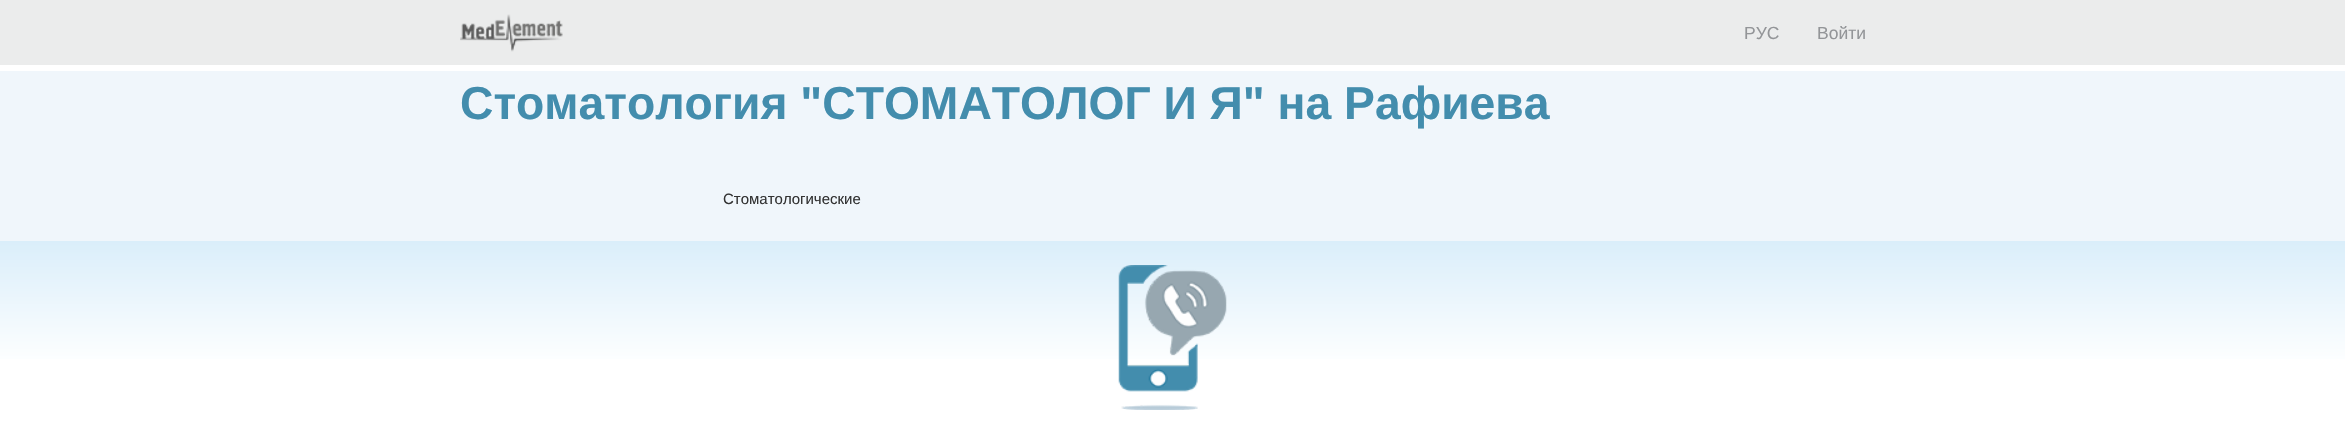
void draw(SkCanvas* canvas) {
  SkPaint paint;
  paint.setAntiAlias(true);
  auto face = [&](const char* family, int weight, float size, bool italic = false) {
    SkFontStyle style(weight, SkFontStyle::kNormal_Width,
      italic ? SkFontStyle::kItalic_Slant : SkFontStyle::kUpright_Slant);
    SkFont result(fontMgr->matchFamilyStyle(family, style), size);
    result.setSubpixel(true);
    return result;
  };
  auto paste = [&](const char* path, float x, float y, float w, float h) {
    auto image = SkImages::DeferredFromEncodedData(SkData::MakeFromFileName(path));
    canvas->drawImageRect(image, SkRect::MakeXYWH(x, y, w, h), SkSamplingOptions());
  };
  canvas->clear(0xffffffff);
  paint.setColor(0xffebecec);
  canvas->drawRect(SkRect::MakeXYWH(0, 0, 2345, 65), paint);
  paste("img/1.png", 460, 14, 103, 38);
  paint.setColor(0xfff0f6fb);
  canvas->drawRect(SkRect::MakeXYWH(0, 71, 2345, 170), paint);
  {
    const SkColor colors[] = {0xffdaeefa, 0xffffffff, 0xffffffff, 0xffdef0fb};
    const float stops[] = {0, 0.5f, 0.69f, 1};
    const SkPoint ends[] = {{1173, 241}, {1173, 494}};
    paint.setShader(SkGradientShader::MakeLinear(ends, colors, stops, 4, SkTileMode::kClamp));
    paint.setAlpha(255);
  }
  canvas->drawRect(SkRect::MakeXYWH(0, 241, 2345, 118), paint);
  paste("img/2.png", 1118, 265, 109, 145);
  auto f0 = face("Liberation Sans", 400, 17.5f);
  paint.setShader(nullptr);
  paint.setColor(0xff939598);
  canvas->drawString("РУС", 1744, 39, f0, paint);
  canvas->drawString("Войти", 1817, 39, f0, paint);
  auto f1 = face("Liberation Sans", 700, 46.25f);
  paint.setColor(0xff438dad);
  canvas->drawString("Стоматология \"СТОМАТОЛОГ И Я\" на Рафиева", 460, 119, f1, paint);
  auto f2 = face("Liberation Sans", 400, 15);
  paint.setColor(0xff333333);
  canvas->drawString("Стоматологические", 723, 204, f2, paint);
}
